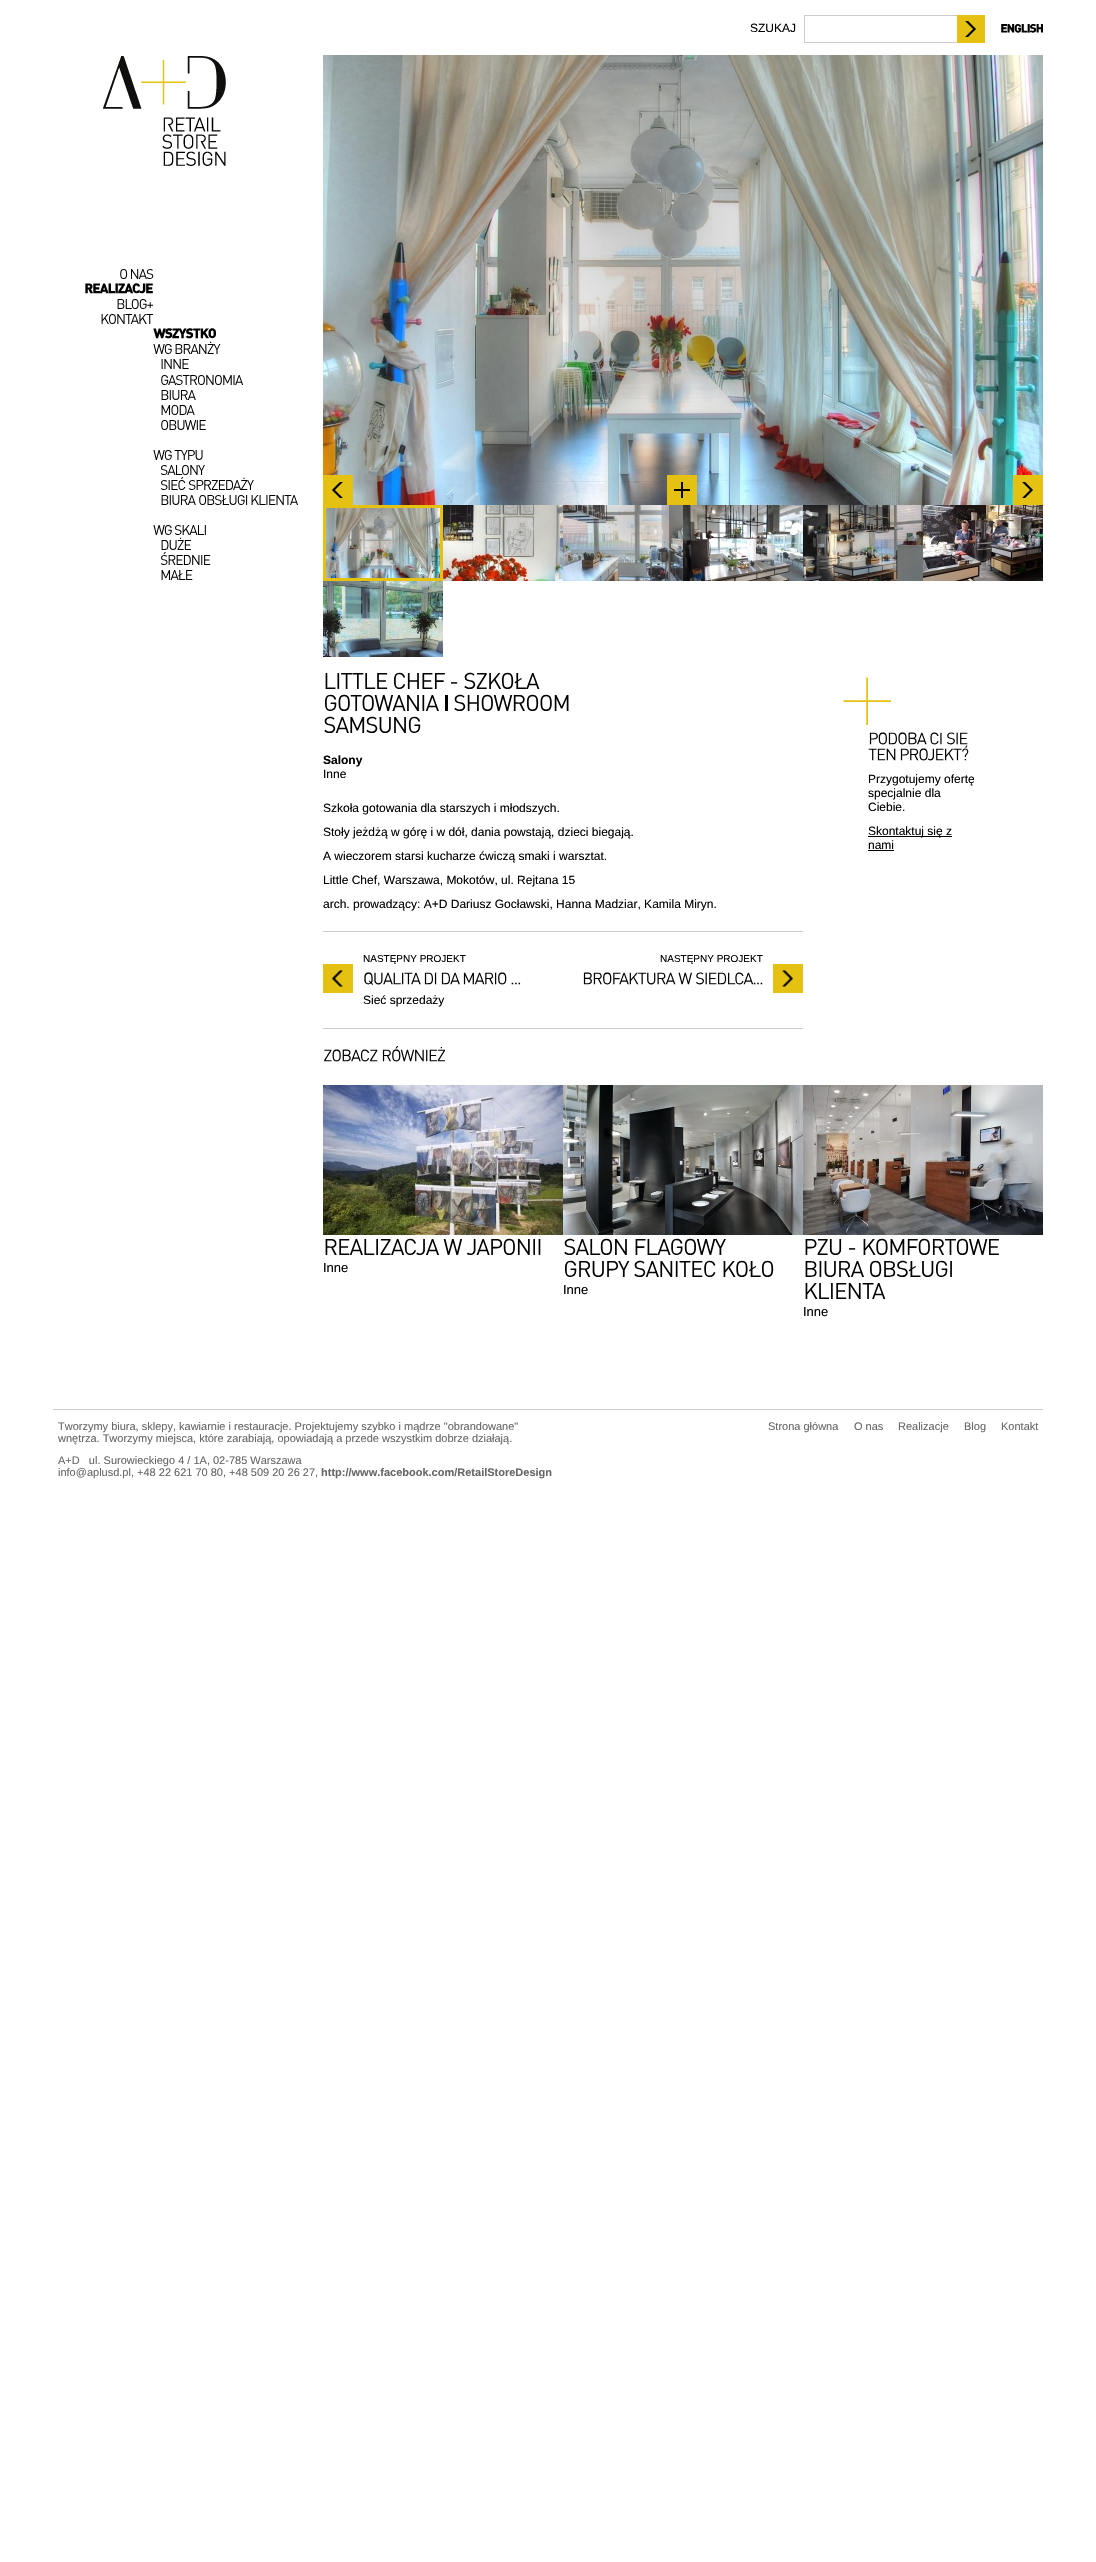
void draw(SkCanvas* canvas) {
  SkPaint paint;
  paint.setAntiAlias(true);
  auto face = [&](const char* family, int weight, float size, bool italic = false) {
    SkFontStyle style(weight, SkFontStyle::kNormal_Width,
      italic ? SkFontStyle::kItalic_Slant : SkFontStyle::kUpright_Slant);
    SkFont result(fontMgr->matchFamilyStyle(family, style), size);
    result.setSubpixel(true);
    return result;
  };
  auto paste = [&](const char* path, float x, float y, float w, float h) {
    auto image = SkImages::DeferredFromEncodedData(SkData::MakeFromFileName(path));
    canvas->drawImageRect(image, SkRect::MakeXYWH(x, y, w, h), SkSamplingOptions());
  };
  canvas->clear(0xffffffff);
  {
    const struct { float x, y, w, h; SkColor color; } items[] = {
      {804, 15, 153, 1, 0xffcccccc},
      {804, 42, 153, 1, 0xffcccccc},
      {804, 15, 1, 28, 0xffcccccc},
      {957, 15, 28, 28, 0xffe5c111},
    };
    for (auto [x, y, w, h, color] : items) {
      paint.setColor(color);
      canvas->drawRect(SkRect::MakeXYWH(x, y, w, h), paint);
    }
  }
  paste("img/1.png", 965, 21, 11, 16);
  paste("img/2.png", 1001, 24, 42, 9);
  paste("img/3.png", 103, 56, 123, 110);
  paste("img/4.png", 120, 269, 8, 10);
  paste("img/5.png", 130, 269, 24, 10);
  paste("img/6.png", 85, 283, 68, 11);
  paste("img/7.png", 117, 299, 37, 10);
  paste("img/8.png", 101, 314, 53, 10);
  paste("img/9.png", 153, 328, 63, 11);
  paste("img/10.png", 153, 344, 19, 10);
  paste("img/11.png", 175, 341, 46, 13);
  paste("img/12.png", 161, 359, 28, 10);
  paste("img/13.png", 161, 375, 83, 10);
  paste("img/14.png", 161, 390, 35, 10);
  paste("img/15.png", 161, 405, 34, 10);
  paste("img/16.png", 161, 420, 45, 10);
  paste("img/10.png", 153, 450, 19, 10);
  paste("img/17.png", 174, 450, 29, 10);
  paste("img/18.png", 160, 465, 45, 10);
  paste("img/19.png", 160, 477, 26, 13);
  paste("img/20.png", 188, 477, 66, 13);
  paste("img/14.png", 161, 495, 35, 10);
  paste("img/21.png", 199, 495, 49, 10);
  paste("img/22.png", 251, 495, 47, 10);
  paste("img/10.png", 153, 525, 19, 10);
  paste("img/23.png", 174, 525, 32, 10);
  paste("img/24.png", 161, 537, 30, 13);
  paste("img/25.png", 160, 552, 51, 13);
  paste("img/26.png", 161, 570, 32, 10);
  paste("img/27.png", 323, 55, 720, 450);
  canvas->drawRect(SkRect::MakeXYWH(323, 475, 30, 30), paint);
  paste("img/28.png", 332, 482, 11, 16);
  canvas->drawRect(SkRect::MakeXYWH(667, 475, 30, 30), paint);
  paste("img/29.png", 674, 482, 16, 16);
  canvas->drawRect(SkRect::MakeXYWH(1013, 475, 30, 30), paint);
  paste("img/1.png", 1022, 482, 11, 16);
  paste("img/31.png", 326, 508, 114, 70);
  paste("img/30.png", 323, 505, 120, 76);
  paste("img/32.png", 443, 505, 120, 76);
  paste("img/33.png", 563, 505, 120, 76);
  paste("img/34.png", 683, 505, 120, 76);
  paste("img/35.png", 803, 505, 120, 76);
  paste("img/36.png", 923, 505, 120, 76);
  paste("img/37.png", 323, 581, 120, 76);
  paste("img/38.png", 325, 673, 63, 16);
  paste("img/39.png", 394, 672, 51, 17);
  paste("img/40.png", 451, 682, 7, 2);
  paste("img/41.png", 464, 672, 76, 17);
  paste("img/42.png", 325, 694, 114, 17);
  paint.setColor(0xff000000);
  canvas->drawRect(SkRect::MakeXYWH(445, 695, 3, 16), paint);
  paste("img/43.png", 454, 694, 115, 17);
  paste("img/44.png", 324, 716, 97, 17);
  paint.setColor(0xffcccccc);
  canvas->drawRect(SkRect::MakeXYWH(323, 931, 480, 1), paint);
  canvas->drawRect(SkRect::MakeXYWH(323, 1028, 480, 1), paint);
  paste("img/45.png", 323, 964, 30, 29);
  paste("img/46.png", 364, 972, 57, 13);
  paste("img/47.png", 424, 972, 13, 13);
  paste("img/48.png", 441, 972, 19, 13);
  paste("img/49.png", 463, 972, 44, 13);
  paste("img/50.png", 511, 982, 10, 3);
  paste("img/51.png", 773, 964, 30, 29);
  paste("img/52.png", 583, 972, 93, 13);
  paste("img/53.png", 678, 972, 14, 13);
  paste("img/54.png", 696, 972, 67, 13);
  paste("img/55.png", 843, 677, 48, 48);
  paste("img/56.png", 869, 732, 58, 13);
  paste("img/57.png", 930, 732, 12, 13);
  paste("img/58.png", 947, 732, 21, 16);
  paste("img/59.png", 868, 748, 28, 13);
  paste("img/60.png", 900, 748, 69, 13);
  paint.setColor(0xff000000);
  canvas->drawRect(SkRect::MakeXYWH(868, 836, 84, 1), paint);
  canvas->drawRect(SkRect::MakeXYWH(868, 850, 26, 1), paint);
  paste("img/61.png", 324, 1049, 54, 13);
  paste("img/62.png", 382, 1046, 64, 16);
  paste("img/63.png", 323, 1085, 240, 150);
  paste("img/64.png", 325, 1238, 114, 17);
  paste("img/65.png", 443, 1239, 20, 16);
  paste("img/66.png", 466, 1238, 75, 17);
  paste("img/67.png", 563, 1085, 240, 150);
  paste("img/68.png", 564, 1238, 63, 17);
  paste("img/69.png", 635, 1238, 91, 17);
  paste("img/70.png", 565, 1260, 65, 17);
  paste("img/71.png", 634, 1260, 82, 17);
  paste("img/72.png", 723, 1260, 51, 17);
  paste("img/73.png", 803, 1085, 240, 150);
  paste("img/74.png", 805, 1239, 37, 16);
  paste("img/40.png", 849, 1248, 7, 2);
  paste("img/75.png", 863, 1238, 136, 17);
  paste("img/76.png", 805, 1261, 59, 16);
  paste("img/77.png", 870, 1260, 82, 17);
  paste("img/78.png", 805, 1283, 81, 16);
  paint.setColor(0xffcccccc);
  canvas->drawRect(SkRect::MakeXYWH(53, 1409, 990, 1), paint);
  auto f0 = face("Liberation Sans", 400, 12);
  paint.setColor(0xff000000);
  canvas->drawString("SZUKAJ", 750, 32, f0, paint);
  auto f1 = face("Liberation Sans", 700, 12);
  canvas->drawString("Salony", 323, 764, f1, paint);
  {
    const struct { const char* s; float x, y; } items[] = {
      {"Inne", 323, 778},
      {"Szkoła gotowania dla starszych i młodszych.", 323, 812},
      {"Stoły jeżdżą w górę i w dół, dania powstają, dzieci biegają.", 323, 836},
      {"A wieczorem starsi kucharze ćwiczą smaki i warsztat.", 323, 860},
      {"Little Chef, Warszawa, Mokotów, ul. Rejtana 15", 323, 884},
      {"arch. prowadzący: A+D Dariusz Gocławski, Hanna Madziar, Kamila Miryn.", 323, 908},
    };
    for (auto [s, x, y] : items) {
      canvas->drawString(s, x, y, f0, paint);
    }
  }
  auto f2 = face("Liberation Sans", 400, 10);
  canvas->drawString("NASTĘPNY PROJEKT", 363, 962, f2, paint);
  canvas->drawString("Sieć sprzedaży", 363, 1004, f0, paint);
  canvas->drawString("NASTĘPNY PROJEKT", 660, 962, f2, paint);
  {
    const struct { const char* s; float x, y; } items[] = {
      {"Przygotujemy ofertę", 868, 783},
      {"specjalnie dla", 868, 797},
      {"Ciebie.", 868, 811},
      {"Skontaktuj się z", 868, 835},
      {"nami", 868, 849},
    };
    for (auto [s, x, y] : items) {
      canvas->drawString(s, x, y, f0, paint);
    }
  }
  auto f3 = face("Liberation Sans", 400, 13);
  {
    const struct { const char* s; float x, y; } items[] = {
      {"Inne", 323, 1272},
      {"Inne", 563, 1294},
      {"Inne", 803, 1316},
    };
    for (auto [s, x, y] : items) {
      canvas->drawString(s, x, y, f3, paint);
    }
  }
  auto f4 = face("Liberation Sans", 400, 11);
  paint.setColor(0xff666666);
  {
    const struct { const char* s; float x, y; } items[] = {
      {"Tworzymy biura, sklepy, kawiarnie i restauracje. Projektujemy szybko i mądrze \"obrandowane\"", 58, 1430},
      {"wnętrza. Tworzymy miejsca, które zarabiają, opowiadają a przede wszystkim dobrze działają.", 58, 1442},
      {"A+D   ul. Surowieckiego 4 / 1A, 02-785 Warszawa", 58, 1464},
      {"info@aplusd.pl, +48 22 621 70 80, +48 509 20 26 27,", 58, 1476},
    };
    for (auto [s, x, y] : items) {
      canvas->drawString(s, x, y, f4, paint);
    }
  }
  auto f5 = face("Liberation Sans", 700, 11);
  canvas->drawString("http://www.facebook.com/RetailStoreDesign", 321, 1476, f5, paint);
  {
    const struct { const char* s; float x, y; } items[] = {
      {"Strona główna", 768, 1430},
      {"O nas", 854, 1430},
      {"Realizacje", 898, 1430},
      {"Blog", 964, 1430},
      {"Kontakt", 1001, 1430},
    };
    for (auto [s, x, y] : items) {
      canvas->drawString(s, x, y, f4, paint);
    }
  }
}
